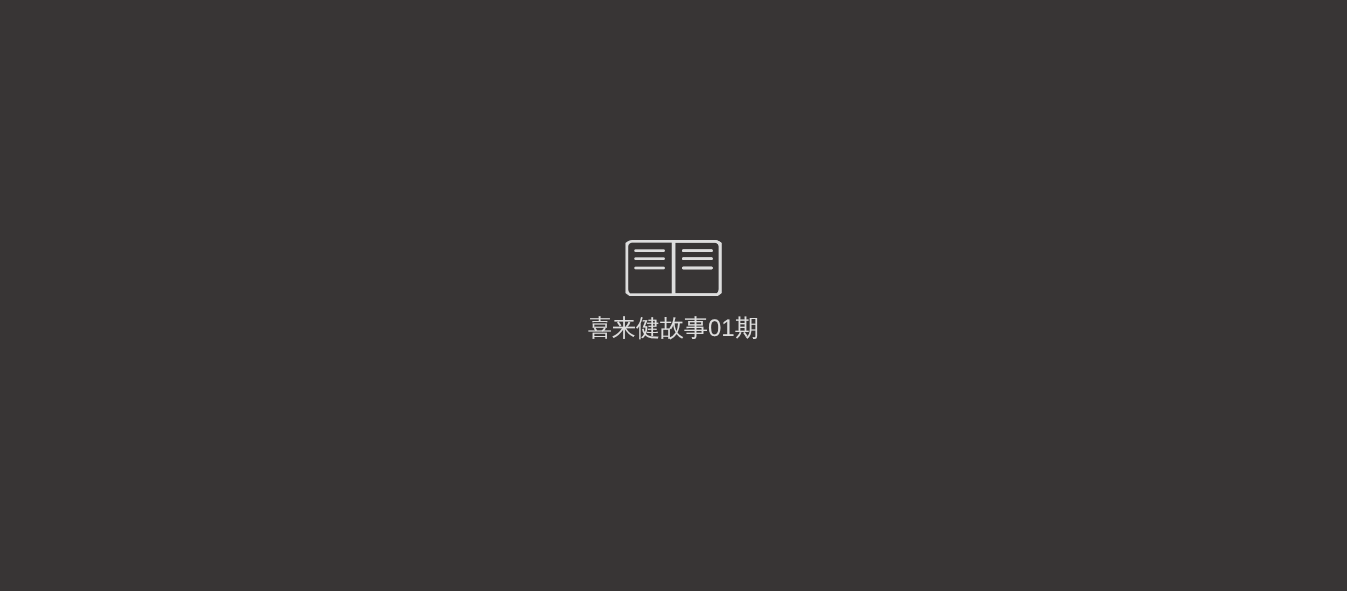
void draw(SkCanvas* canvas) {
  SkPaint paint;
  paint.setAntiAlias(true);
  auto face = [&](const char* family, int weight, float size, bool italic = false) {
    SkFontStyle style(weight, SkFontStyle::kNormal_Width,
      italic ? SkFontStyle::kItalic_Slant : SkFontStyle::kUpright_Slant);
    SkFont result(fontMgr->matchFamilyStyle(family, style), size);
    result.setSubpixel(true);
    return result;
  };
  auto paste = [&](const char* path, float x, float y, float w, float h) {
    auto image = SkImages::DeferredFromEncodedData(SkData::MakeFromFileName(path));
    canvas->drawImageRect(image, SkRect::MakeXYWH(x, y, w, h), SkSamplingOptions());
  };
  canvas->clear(0xff383535);
  paste("img/1.png", 625, 240, 49, 56);
  paste("img/2.png", 674, 240, 48, 56);
  paste("img/3.png", 675, 240, 47, 56);
  auto f0 = face("WenQuanYi Zen Hei", 500, 24);
  paint.setColor(0xffdddddd);
  canvas->drawString("喜来健故事", 588, 336, f0, paint);
  auto f1 = face("Liberation Sans", 400, 24);
  canvas->drawString("01", 708, 336, f1, paint);
  canvas->drawString("期", 735, 336, f0, paint);
}
